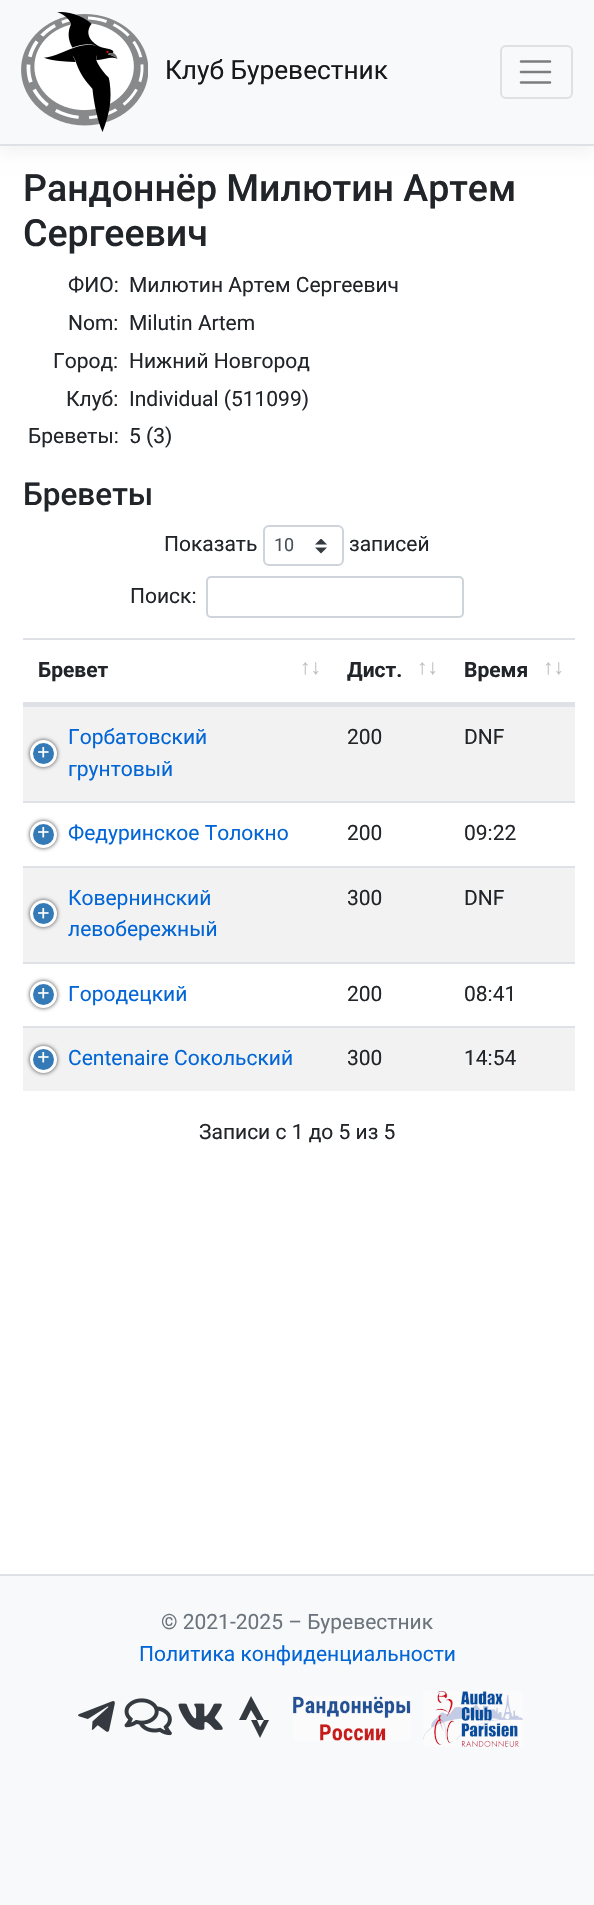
void draw(SkCanvas* canvas) {
  SkPaint paint;
  paint.setAntiAlias(true);
  auto face = [&](const char* family, int weight, float size, bool italic = false) {
    SkFontStyle style(weight, SkFontStyle::kNormal_Width,
      italic ? SkFontStyle::kItalic_Slant : SkFontStyle::kUpright_Slant);
    SkFont result(fontMgr->matchFamilyStyle(family, style), size);
    result.setSubpixel(true);
    return result;
  };
  auto paste = [&](const char* path, float x, float y, float w, float h) {
    auto image = SkImages::DeferredFromEncodedData(SkData::MakeFromFileName(path));
    canvas->drawImageRect(image, SkRect::MakeXYWH(x, y, w, h), SkSamplingOptions());
  };
  auto shape = [&](const char* data, bool evenOdd = false) {
    SkPath result = *SkParsePath::FromSVGString(data);
    if (evenOdd) result.setFillType(SkPathFillType::kEvenOdd);
    return result;
  };
  canvas->clear(0xfff8f9fa);
  paint.setColor(0xffffffff);
  canvas->drawRect(SkRect::MakeXYWH(0, 146, 594, 1428), paint);
  paint.setColor(0x0d000000);
  paint.setMaskFilter(SkMaskFilter::MakeBlur(kNormal_SkBlurStyle, 8));
  canvas->drawRect(SkRect::MakeXYWH(0, 6, 594, 146), paint);
  paint.setMaskFilter(nullptr);
  paint.setColor(0xfff8f9fa);
  canvas->drawRect(SkRect::MakeXYWH(0, 0, 594, 144), paint);
  paint.setColor(0xffdee2e6);
  canvas->drawRect(SkRect::MakeXYWH(0, 144, 594, 2), paint);
  paste("img/1.png", 21, 12, 127, 120);
  paint.setStroke(true);
  paint.setStrokeWidth(2);
  paint.setColor(0xffdfe0e1);
  canvas->drawRoundRect(SkRect::MakeXYWH(501, 46, 71, 52), 5, 5, paint);
  paint.setStrokeWidth(2.6f);
  paint.setStrokeCap(SkPaint::kRound_Cap);
  paint.setColor(0xff7c7d7d);
  canvas->drawPath(shape("M521 61.5H550M521 72H550M521 82.5H550"), paint);
  paste("img/2.png", 315, 539, 12, 15);
  paint.setStrokeWidth(2);
  paint.setStrokeCap(SkPaint::kButt_Cap);
  paint.setColor(0xffced4da);
  canvas->drawRoundRect(SkRect::MakeXYWH(264, 526, 79, 39), 5, 5, paint);
  canvas->drawRoundRect(SkRect::MakeXYWH(207, 577, 256, 40), 4, 4, paint);
  paint.setStroke(false);
  {
    const struct { float x, y, w, h; SkColor color; } items[] = {
      {23, 638, 552, 2, 0xffdee2e6},
      {23, 702, 552, 3, 0xffdee2e6},
      {23, 707, 552, 94, 0xfff2f2f2},
    };
    for (auto [x, y, w, h, color] : items) {
      paint.setColor(color);
      canvas->drawRect(SkRect::MakeXYWH(x, y, w, h), paint);
    }
  }
  paint.setColor(0xff444444);
  paint.setMaskFilter(SkMaskFilter::MakeBlur(kNormal_SkBlurStyle, 2));
  canvas->drawRoundRect(SkRect::MakeXYWH(30, 740, 27, 27), 13.5f, 13.5f, paint);
  paint.setMaskFilter(nullptr);
  paint.setColor(0xff337ab7);
  canvas->drawCircle(43.5f, 753.5f, 12, paint);
  paint.setStroke(true);
  paint.setStrokeWidth(3);
  paint.setColor(0xffffffff);
  canvas->drawCircle(43.5f, 753.5f, 12, paint);
  paint.setStroke(false);
  paint.setColor(0xffdee2e6);
  canvas->drawRect(SkRect::MakeXYWH(23, 705, 552, 2), paint);
  paint.setColor(0xff444444);
  paint.setMaskFilter(SkMaskFilter::MakeBlur(kNormal_SkBlurStyle, 2));
  canvas->drawRoundRect(SkRect::MakeXYWH(30, 821, 27, 27), 13.5f, 13.5f, paint);
  paint.setMaskFilter(nullptr);
  paint.setColor(0xff337ab7);
  canvas->drawCircle(43.5f, 834.5f, 12, paint);
  paint.setStroke(true);
  paint.setColor(0xffffffff);
  canvas->drawCircle(43.5f, 834.5f, 12, paint);
  paint.setStroke(false);
  paint.setColor(0xffdee2e6);
  canvas->drawRect(SkRect::MakeXYWH(23, 801, 552, 2), paint);
  paint.setColor(0xfff2f2f2);
  canvas->drawRect(SkRect::MakeXYWH(23, 868, 552, 94), paint);
  paint.setColor(0xff444444);
  paint.setMaskFilter(SkMaskFilter::MakeBlur(kNormal_SkBlurStyle, 2));
  canvas->drawRoundRect(SkRect::MakeXYWH(30, 900, 27, 27), 13.5f, 13.5f, paint);
  paint.setMaskFilter(nullptr);
  paint.setColor(0xff337ab7);
  canvas->drawCircle(43.5f, 913.5f, 12, paint);
  paint.setStroke(true);
  paint.setColor(0xffffffff);
  canvas->drawCircle(43.5f, 913.5f, 12, paint);
  paint.setStroke(false);
  paint.setColor(0xffdee2e6);
  canvas->drawRect(SkRect::MakeXYWH(23, 866, 552, 2), paint);
  paint.setColor(0xff444444);
  paint.setMaskFilter(SkMaskFilter::MakeBlur(kNormal_SkBlurStyle, 2));
  canvas->drawRoundRect(SkRect::MakeXYWH(30, 981, 27, 27), 13.5f, 13.5f, paint);
  paint.setMaskFilter(nullptr);
  paint.setColor(0xff337ab7);
  canvas->drawCircle(43.5f, 994.5f, 12, paint);
  paint.setStroke(true);
  paint.setColor(0xffffffff);
  canvas->drawCircle(43.5f, 994.5f, 12, paint);
  paint.setStroke(false);
  paint.setColor(0xffdee2e6);
  canvas->drawRect(SkRect::MakeXYWH(23, 962, 552, 2), paint);
  paint.setColor(0xfff2f2f2);
  canvas->drawRect(SkRect::MakeXYWH(23, 1028, 552, 63), paint);
  paint.setColor(0xff444444);
  paint.setMaskFilter(SkMaskFilter::MakeBlur(kNormal_SkBlurStyle, 2));
  canvas->drawRoundRect(SkRect::MakeXYWH(30, 1046, 27, 27), 13.5f, 13.5f, paint);
  paint.setMaskFilter(nullptr);
  paint.setColor(0xff337ab7);
  canvas->drawCircle(43.5f, 1059.5f, 12, paint);
  paint.setStroke(true);
  paint.setColor(0xffffffff);
  canvas->drawCircle(43.5f, 1059.5f, 12, paint);
  paint.setStroke(false);
  paint.setColor(0xffdee2e6);
  canvas->drawRect(SkRect::MakeXYWH(23, 1026, 552, 2), paint);
  canvas->drawRect(SkRect::MakeXYWH(0, 1574, 594, 2), paint);
  paste("img/3.png", 78, 1701, 37, 31);
  paste("img/4.png", 124, 1698, 48, 38);
  paste("img/5.png", 178, 1703, 45, 27);
  paint.setColor(0xff343a40);
  canvas->drawPath(shape("M251 1696L264 1720H257L251 1710L246 1720H239ZM264 1720H269L260 1738L251 1720H257L260 1727Z"), paint);
  paste("img/6.png", 293, 1696, 118, 45);
  paste("img/7.png", 423, 1691, 100, 56);
  auto f0 = face("Roboto", 400, 26.25f);
  paint.setColor(0xff191919);
  canvas->drawString("Клуб Буревестник", 165, 79, f0, paint);
  auto f1 = face("Roboto", 500, 37.5f);
  paint.setColor(0xff212529);
  canvas->drawString("Рандоннёр Милютин Артем", 23, 201, f1, paint);
  canvas->drawString("Сергеевич", 23, 246, f1, paint);
  auto f2 = face("Roboto", 400, 21);
  {
    const struct { const char* s; float x, y; } items[] = {
      {"ФИО:", 68, 292},
      {"Милютин Артем Сергеевич", 129, 292},
      {"Nom:", 68, 330},
      {"Milutin Artem", 129, 330},
      {"Город:", 53, 368},
      {"Нижний Новгород", 129, 368},
      {"Клуб:", 66, 406},
      {"Individual (511099)", 129, 406},
      {"Бреветы:", 28, 443},
      {"5 (3)", 129, 443},
    };
    for (auto [s, x, y] : items) {
      canvas->drawString(s, x, y, f2, paint);
    }
  }
  auto f3 = face("Roboto", 500, 31.5f);
  canvas->drawString("Бреветы", 23, 505, f3, paint);
  canvas->drawString("Показать", 164, 551, f2, paint);
  auto f4 = face("Roboto", 400, 18);
  paint.setColor(0xff495057);
  canvas->drawString("10", 274, 551, f4, paint);
  paint.setColor(0xff212529);
  canvas->drawString("записей", 349, 551, f2, paint);
  canvas->drawString("Поиск:", 130, 603, f2, paint);
  auto f5 = face("Roboto", 700, 21);
  canvas->drawString("Бревет", 38, 677, f5, paint);
  auto f6 = face("Liberation Sans", 700, 21);
  paint.setColor(0xffbcbebf);
  canvas->drawString("↑↓", 300, 674, f6, paint);
  paint.setColor(0xff212529);
  canvas->drawString("Дист.", 347, 677, f5, paint);
  paint.setColor(0xffbcbebf);
  canvas->drawString("↑↓", 417, 674, f6, paint);
  paint.setColor(0xff212529);
  canvas->drawString("Время", 464, 677, f5, paint);
  paint.setColor(0xffbcbebf);
  canvas->drawString("↑↓", 543, 674, f6, paint);
  paint.setColor(0xff0366d6);
  canvas->drawString("Горбатовский", 68, 744, f2, paint);
  auto f7 = face("Liberation Mono", 400, 21);
  paint.setColor(0xffffffff);
  canvas->drawString("+", 37, 759, f7, paint);
  paint.setColor(0xff0366d6);
  canvas->drawString("грунтовый", 68, 776, f2, paint);
  paint.setColor(0xff212529);
  canvas->drawString("200", 347, 744, f2, paint);
  canvas->drawString("DNF", 464, 744, f2, paint);
  paint.setColor(0xffffffff);
  canvas->drawString("+", 37, 839, f7, paint);
  paint.setColor(0xff0366d6);
  canvas->drawString("Федуринское Толокно", 68, 840, f2, paint);
  paint.setColor(0xff212529);
  canvas->drawString("200", 347, 840, f2, paint);
  canvas->drawString("09:22", 464, 840, f2, paint);
  paint.setColor(0xff0366d6);
  canvas->drawString("Ковернинский", 68, 905, f2, paint);
  paint.setColor(0xffffffff);
  canvas->drawString("+", 37, 920, f7, paint);
  paint.setColor(0xff0366d6);
  canvas->drawString("левобережный", 68, 936, f2, paint);
  paint.setColor(0xff212529);
  canvas->drawString("300", 347, 905, f2, paint);
  canvas->drawString("DNF", 464, 905, f2, paint);
  paint.setColor(0xffffffff);
  canvas->drawString("+", 37, 1000, f7, paint);
  paint.setColor(0xff0366d6);
  canvas->drawString("Городецкий", 68, 1001, f2, paint);
  paint.setColor(0xff212529);
  canvas->drawString("200", 347, 1001, f2, paint);
  canvas->drawString("08:41", 464, 1001, f2, paint);
  paint.setColor(0xffffffff);
  canvas->drawString("+", 37, 1064, f7, paint);
  paint.setColor(0xff0366d6);
  canvas->drawString("Centenaire Сокольский", 68, 1065, f2, paint);
  paint.setColor(0xff212529);
  {
    const struct { const char* s; float x, y; } items[] = {
      {"300", 347, 1065},
      {"14:54", 464, 1065},
      {"Записи с 1 до 5 из 5", 199, 1139},
    };
    for (auto [s, x, y] : items) {
      canvas->drawString(s, x, y, f2, paint);
    }
  }
  paint.setColor(0xff6c757d);
  canvas->drawString("© 2021-2025 – Буревестник", 161, 1629, f2, paint);
  paint.setColor(0xff0366d6);
  canvas->drawString("Политика конфиденциальности", 139, 1661, f2, paint);
}
